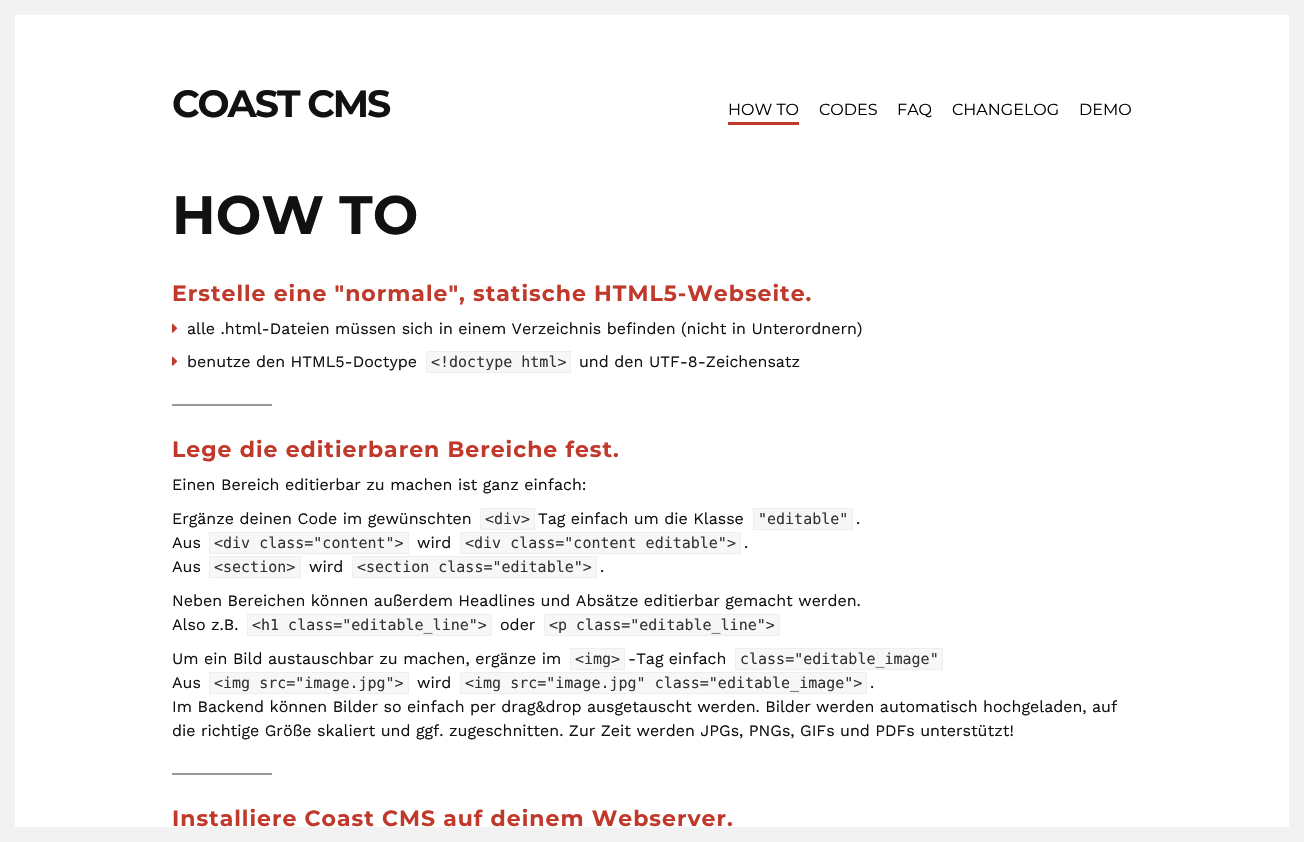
void draw(SkCanvas* canvas) {
  SkPaint paint;
  paint.setAntiAlias(true);
  auto face = [&](const char* family, int weight, float size, bool italic = false) {
    SkFontStyle style(weight, SkFontStyle::kNormal_Width,
      italic ? SkFontStyle::kItalic_Slant : SkFontStyle::kUpright_Slant);
    SkFont result(fontMgr->matchFamilyStyle(family, style), size);
    result.setSubpixel(true);
    return result;
  };
  auto writeSpaced = [&](const char* s, float x, float y, const SkFont& font, const SkPaint& ink, float letter, float word) {
    std::vector<SkGlyphID> glyphs(font.countText(s, strlen(s), SkTextEncoding::kUTF8));
    std::vector<float> xs(glyphs.size());
    font.textToGlyphs(s, strlen(s), SkTextEncoding::kUTF8, glyphs);
    font.getXPos(glyphs, xs, x);
    float extra = 0;
    for (size_t i = 0; i < glyphs.size(); i++) {
      xs[i] += extra;
      extra += letter + word * (glyphs[i] == font.unicharToGlyph(' '));
    }
    canvas->drawTextBlob(SkTextBlob::MakeFromPosHGlyphs(glyphs, xs, y, font), 0, 0, ink);
  };
  auto paste = [&](const char* path, float x, float y, float w, float h) {
    auto image = SkImages::DeferredFromEncodedData(SkData::MakeFromFileName(path));
    canvas->drawImageRect(image, SkRect::MakeXYWH(x, y, w, h), SkSamplingOptions());
  };
  canvas->clear(0xffffffff);
  {
    const struct { float x, y, w, h; SkColor color; } items[] = {
      {0, 0, 15, 842, 0xfff2f2f2},
      {15, 0, 1274, 15, 0xfff2f2f2},
      {1289, 0, 15, 842, 0xfff2f2f2},
      {728, 122, 71, 3, 0xffc0392b},
    };
    for (auto [x, y, w, h, color] : items) {
      paint.setColor(color);
      canvas->drawRect(SkRect::MakeXYWH(x, y, w, h), paint);
    }
  }
  paste("img/1.png", 172, 323, 6, 10);
  paste("img/1.png", 172, 356, 6, 10);
  paint.setColor(0xfff7f7f7);
  canvas->drawRect(SkRect::MakeXYWH(426.5f, 351.5f, 144, 21), paint);
  paint.setStroke(true);
  paint.setStrokeWidth(1);
  paint.setColor(0xffeeeeee);
  canvas->drawRect(SkRect::MakeXYWH(426.5f, 351.5f, 144, 21), paint);
  paint.setStroke(false);
  paint.setColor(0xff999999);
  canvas->drawRect(SkRect::MakeXYWH(172, 404, 100, 2), paint);
  paint.setColor(0xfff7f7f7);
  canvas->drawRect(SkRect::MakeXYWH(480.5f, 508.5f, 54, 21), paint);
  paint.setStroke(true);
  paint.setColor(0xffeeeeee);
  canvas->drawRect(SkRect::MakeXYWH(480.5f, 508.5f, 54, 21), paint);
  paint.setStroke(false);
  paint.setColor(0xfff7f7f7);
  canvas->drawRect(SkRect::MakeXYWH(753.5f, 508.5f, 99, 21), paint);
  paint.setStroke(true);
  paint.setColor(0xffeeeeee);
  canvas->drawRect(SkRect::MakeXYWH(753.5f, 508.5f, 99, 21), paint);
  paint.setStroke(false);
  paint.setColor(0xfff7f7f7);
  canvas->drawRect(SkRect::MakeXYWH(209.5f, 532.5f, 199, 21), paint);
  paint.setStroke(true);
  paint.setColor(0xffeeeeee);
  canvas->drawRect(SkRect::MakeXYWH(209.5f, 532.5f, 199, 21), paint);
  paint.setStroke(false);
  paint.setColor(0xfff7f7f7);
  canvas->drawRect(SkRect::MakeXYWH(460.5f, 532.5f, 280, 21), paint);
  paint.setStroke(true);
  paint.setColor(0xffeeeeee);
  canvas->drawRect(SkRect::MakeXYWH(460.5f, 532.5f, 280, 21), paint);
  paint.setStroke(false);
  paint.setColor(0xfff7f7f7);
  canvas->drawRect(SkRect::MakeXYWH(209.5f, 556.5f, 91, 21), paint);
  paint.setStroke(true);
  paint.setColor(0xffeeeeee);
  canvas->drawRect(SkRect::MakeXYWH(209.5f, 556.5f, 91, 21), paint);
  paint.setStroke(false);
  paint.setColor(0xfff7f7f7);
  canvas->drawRect(SkRect::MakeXYWH(352.5f, 556.5f, 244, 21), paint);
  paint.setStroke(true);
  paint.setColor(0xffeeeeee);
  canvas->drawRect(SkRect::MakeXYWH(352.5f, 556.5f, 244, 21), paint);
  paint.setStroke(false);
  paint.setColor(0xfff7f7f7);
  canvas->drawRect(SkRect::MakeXYWH(247.5f, 614.5f, 244, 21), paint);
  paint.setStroke(true);
  paint.setColor(0xffeeeeee);
  canvas->drawRect(SkRect::MakeXYWH(247.5f, 614.5f, 244, 21), paint);
  paint.setStroke(false);
  paint.setColor(0xfff7f7f7);
  canvas->drawRect(SkRect::MakeXYWH(544.5f, 614.5f, 235, 21), paint);
  paint.setStroke(true);
  paint.setColor(0xffeeeeee);
  canvas->drawRect(SkRect::MakeXYWH(544.5f, 614.5f, 235, 21), paint);
  paint.setStroke(false);
  paint.setColor(0xfff7f7f7);
  canvas->drawRect(SkRect::MakeXYWH(570.5f, 648.5f, 54, 21), paint);
  paint.setStroke(true);
  paint.setColor(0xffeeeeee);
  canvas->drawRect(SkRect::MakeXYWH(570.5f, 648.5f, 54, 21), paint);
  paint.setStroke(false);
  paint.setColor(0xfff7f7f7);
  canvas->drawRect(SkRect::MakeXYWH(735.5f, 648.5f, 207, 21), paint);
  paint.setStroke(true);
  paint.setColor(0xffeeeeee);
  canvas->drawRect(SkRect::MakeXYWH(735.5f, 648.5f, 207, 21), paint);
  paint.setStroke(false);
  paint.setColor(0xfff7f7f7);
  canvas->drawRect(SkRect::MakeXYWH(209.5f, 672.5f, 199, 21), paint);
  paint.setStroke(true);
  paint.setColor(0xffeeeeee);
  canvas->drawRect(SkRect::MakeXYWH(209.5f, 672.5f, 199, 21), paint);
  paint.setStroke(false);
  paint.setColor(0xfff7f7f7);
  canvas->drawRect(SkRect::MakeXYWH(460.5f, 672.5f, 406, 21), paint);
  paint.setStroke(true);
  paint.setColor(0xffeeeeee);
  canvas->drawRect(SkRect::MakeXYWH(460.5f, 672.5f, 406, 21), paint);
  paint.setStroke(false);
  paint.setColor(0xff999999);
  canvas->drawRect(SkRect::MakeXYWH(172, 773, 100, 2), paint);
  paint.setColor(0xfff2f2f2);
  canvas->drawRect(SkRect::MakeXYWH(15, 827, 1274, 15), paint);
  auto f0 = face("Montserrat", 700, 38);
  paint.setColor(0xff111111);
  writeSpaced("COAST CMS", 172, 117, f0, paint, -2, 0);
  auto f1 = face("Montserrat", 400, 16);
  paint.setColor(0xff000000);
  {
    const struct { const char* s; float x, y; } items[] = {
      {"HOW TO", 728, 115},
      {"CODES", 819, 115},
      {"FAQ", 897, 115},
      {"CHANGELOG", 952, 115},
      {"DEMO", 1079, 115},
    };
    for (auto [s, x, y] : items) {
      canvas->drawString(s, x, y, f1, paint);
    }
  }
  auto f2 = face("Montserrat", 700, 54);
  paint.setColor(0xff111111);
  canvas->drawString("HOW TO", 172, 234, f2, paint);
  auto f3 = face("Montserrat", 700, 22);
  paint.setColor(0xffc0392b);
  writeSpaced("Erstelle eine \"normale\", statische HTML5-Webseite.", 172, 301, f3, paint, 1, 0);
  auto f4 = face("Work Sans", 400, 16);
  paint.setColor(0xff111111);
  canvas->drawString("alle .html-Dateien müssen sich in einem Verzeichnis befinden (nicht in Unterordnern)", 187, 334, f4, paint);
  canvas->drawString("benutze den HTML5-Doctype", 187, 367, f4, paint);
  auto f5 = face("DejaVu Sans Mono", 400, 15);
  paint.setColor(0xff333333);
  canvas->drawString("<!doctype html>", 431, 367, f5, paint);
  paint.setColor(0xff111111);
  canvas->drawString("und den UTF-8-Zeichensatz", 579, 367, f4, paint);
  paint.setColor(0xffc0392b);
  writeSpaced("Lege die editierbaren Bereiche fest.", 172, 457, f3, paint, 1, 0);
  paint.setColor(0xff111111);
  canvas->drawString("Einen Bereich editierbar zu machen ist ganz einfach:", 172, 490, f4, paint);
  canvas->drawString("Ergänze deinen Code im gewünschten", 172, 524, f4, paint);
  paint.setColor(0xff333333);
  canvas->drawString("<div>", 485, 524, f5, paint);
  paint.setColor(0xff111111);
  canvas->drawString("Tag einfach um die Klasse", 538, 524, f4, paint);
  paint.setColor(0xff333333);
  canvas->drawString("\"editable\"", 758, 524, f5, paint);
  paint.setColor(0xff111111);
  canvas->drawString(".", 856, 524, f4, paint);
  canvas->drawString("Aus", 172, 548, f4, paint);
  paint.setColor(0xff333333);
  canvas->drawString("<div class=\"content\">", 214, 548, f5, paint);
  paint.setColor(0xff111111);
  canvas->drawString("wird", 417, 548, f4, paint);
  paint.setColor(0xff333333);
  canvas->drawString("<div class=\"content editable\">", 465, 548, f5, paint);
  paint.setColor(0xff111111);
  canvas->drawString(".", 744, 548, f4, paint);
  canvas->drawString("Aus", 172, 572, f4, paint);
  paint.setColor(0xff333333);
  canvas->drawString("<section>", 214, 572, f5, paint);
  paint.setColor(0xff111111);
  canvas->drawString("wird", 309, 572, f4, paint);
  paint.setColor(0xff333333);
  canvas->drawString("<section class=\"editable\">", 357, 572, f5, paint);
  paint.setColor(0xff111111);
  {
    const struct { const char* s; float x, y; } items[] = {
      {".", 600, 572},
      {"Neben Bereichen können außerdem Headlines und Absätze editierbar gemacht werden.", 172, 606},
      {"Also z.B.", 172, 630},
    };
    for (auto [s, x, y] : items) {
      canvas->drawString(s, x, y, f4, paint);
    }
  }
  paint.setColor(0xff333333);
  canvas->drawString("<h1 class=\"editable_line\">", 252, 630, f5, paint);
  paint.setColor(0xff111111);
  canvas->drawString("oder", 500, 630, f4, paint);
  paint.setColor(0xff333333);
  canvas->drawString("<p class=\"editable_line\">", 549, 630, f5, paint);
  paint.setColor(0xff111111);
  canvas->drawString("Um ein Bild austauschbar zu machen, ergänze im", 172, 664, f4, paint);
  paint.setColor(0xff333333);
  canvas->drawString("<img>", 575, 664, f5, paint);
  paint.setColor(0xff111111);
  canvas->drawString("-Tag einfach", 628, 664, f4, paint);
  paint.setColor(0xff333333);
  canvas->drawString("class=\"editable_image\"", 740, 664, f5, paint);
  paint.setColor(0xff111111);
  canvas->drawString("Aus", 172, 688, f4, paint);
  paint.setColor(0xff333333);
  canvas->drawString("<img src=\"image.jpg\">", 214, 688, f5, paint);
  paint.setColor(0xff111111);
  canvas->drawString("wird", 417, 688, f4, paint);
  paint.setColor(0xff333333);
  canvas->drawString("<img src=\"image.jpg\" class=\"editable_image\">", 465, 688, f5, paint);
  paint.setColor(0xff111111);
  {
    const struct { const char* s; float x, y; } items[] = {
      {".", 870, 688},
      {"Im Backend können Bilder so einfach per drag&drop ausgetauscht werden. Bilder werden automatisch hochgeladen, auf", 172, 712},
      {"die richtige Größe skaliert und ggf. zugeschnitten. Zur Zeit werden JPGs, PNGs, GIFs und PDFs unterstützt!", 172, 736},
    };
    for (auto [s, x, y] : items) {
      canvas->drawString(s, x, y, f4, paint);
    }
  }
  paint.setColor(0xffc0392b);
  writeSpaced("Installiere Coast CMS auf deinem Webserver.", 172, 826, f3, paint, 1, 0);
}
